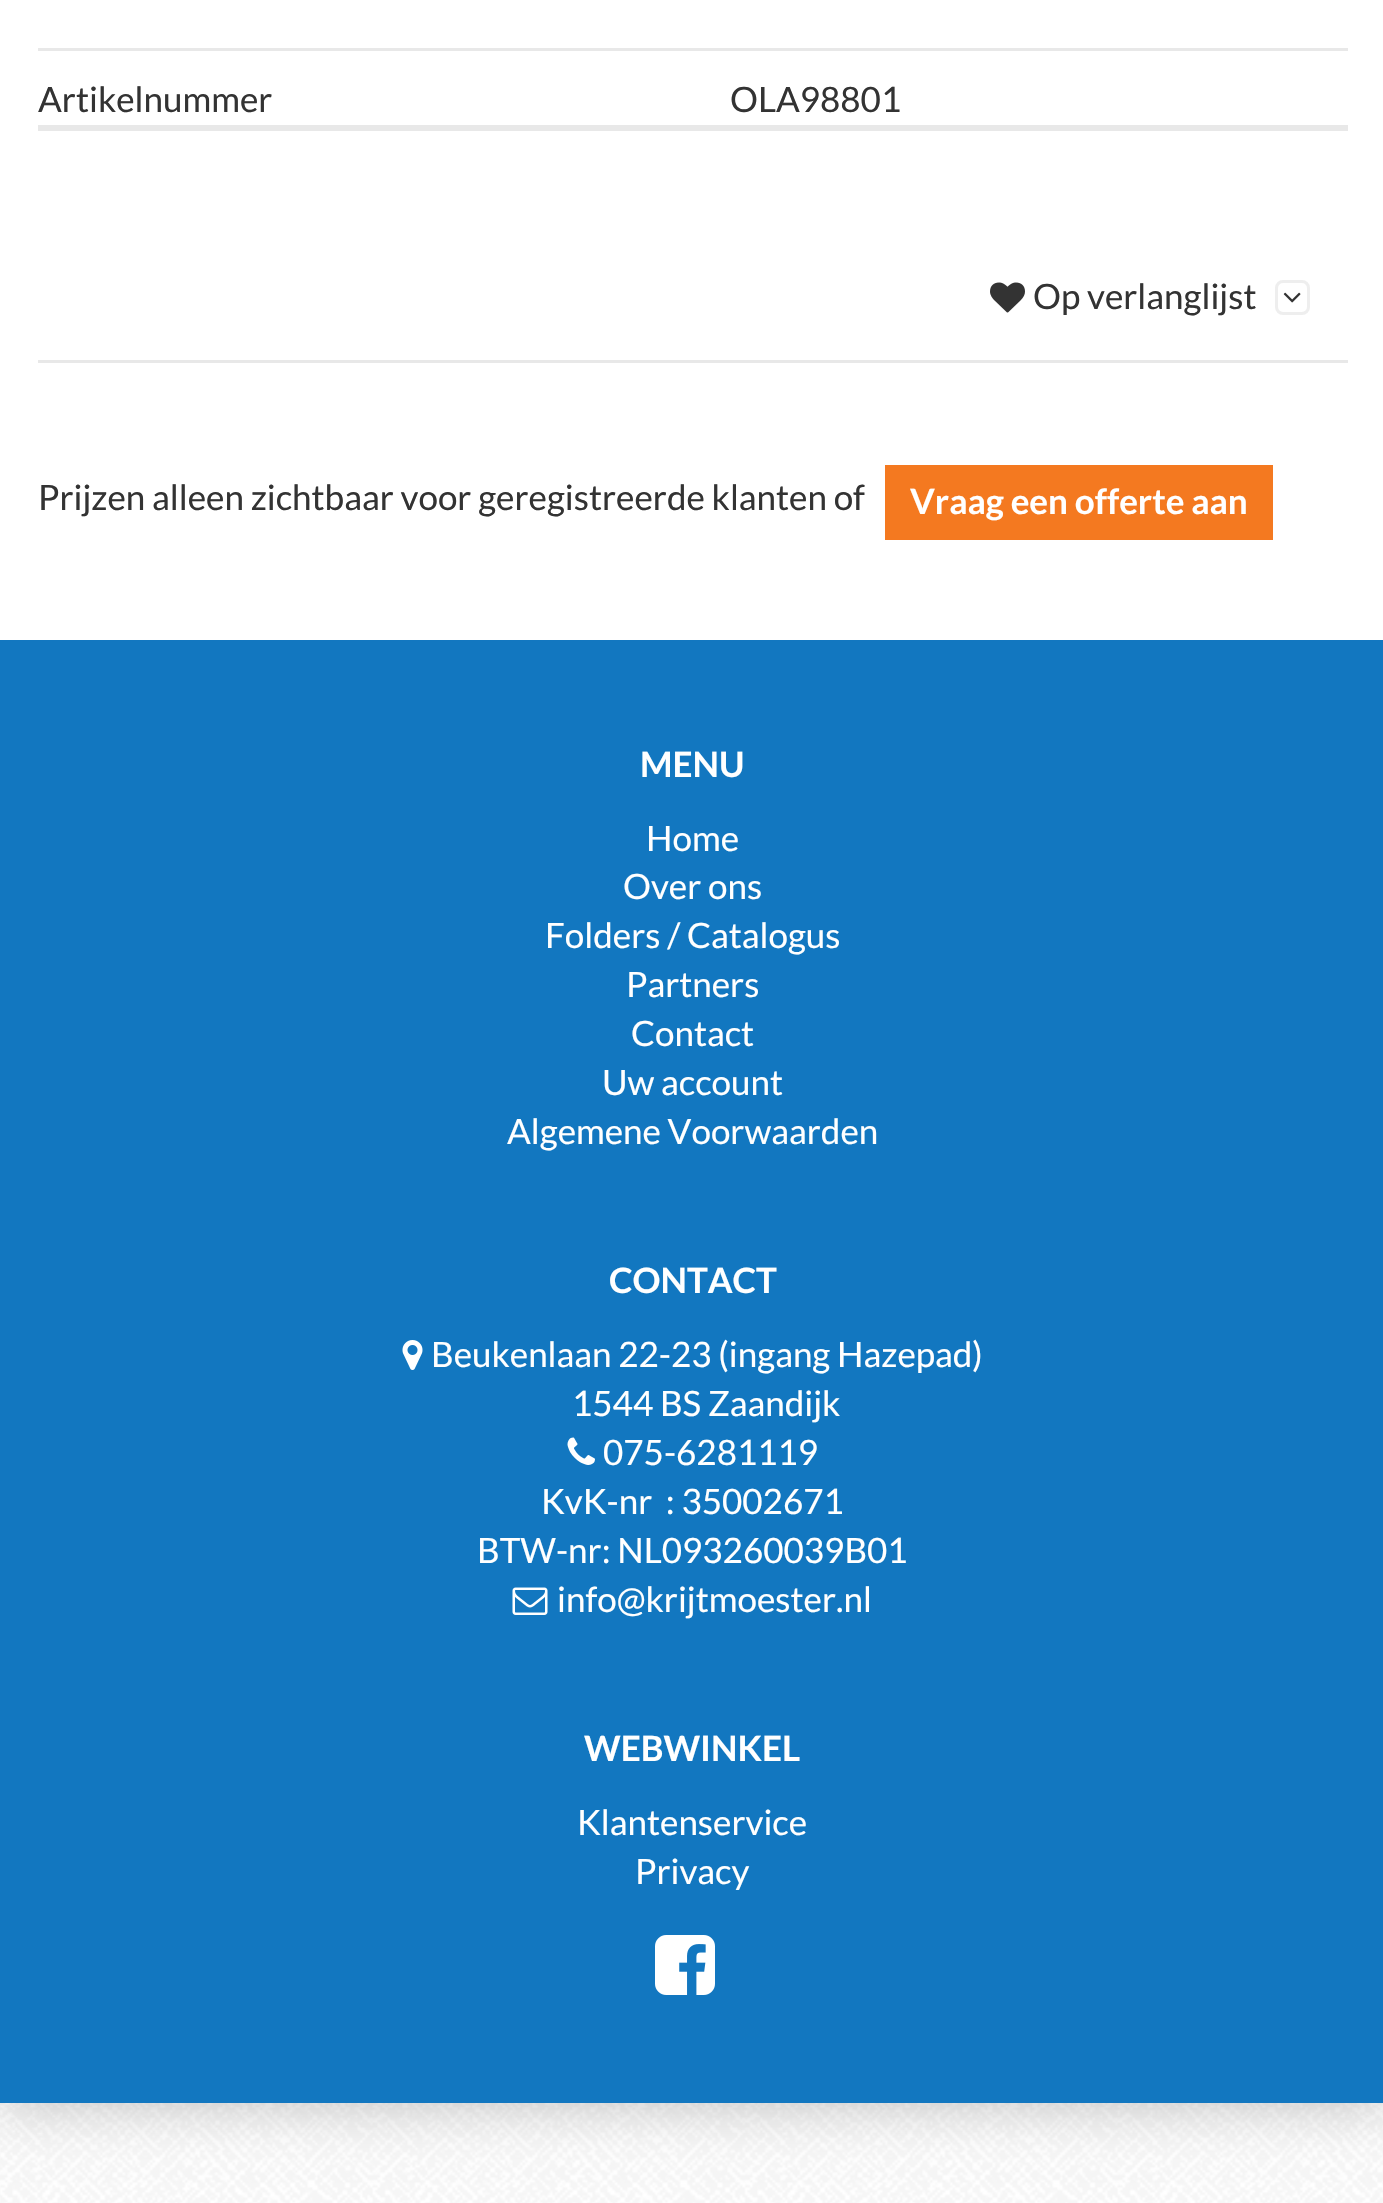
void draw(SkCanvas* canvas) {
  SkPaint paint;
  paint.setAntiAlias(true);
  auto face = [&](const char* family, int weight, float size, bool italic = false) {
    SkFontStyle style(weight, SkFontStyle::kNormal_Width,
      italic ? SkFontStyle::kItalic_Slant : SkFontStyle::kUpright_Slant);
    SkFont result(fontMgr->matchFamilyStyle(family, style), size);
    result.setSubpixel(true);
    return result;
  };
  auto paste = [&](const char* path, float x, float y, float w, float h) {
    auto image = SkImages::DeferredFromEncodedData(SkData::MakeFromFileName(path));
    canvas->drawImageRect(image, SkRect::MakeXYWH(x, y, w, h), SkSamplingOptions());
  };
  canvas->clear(0xffffffff);
  paste("img/1.png", 0, 2103, 1383, 100);
  paint.setColor(0x33000000);
  paint.setMaskFilter(SkMaskFilter::MakeBlur(kNormal_SkBlurStyle, 25));
  canvas->drawRect(SkRect::MakeXYWH(0, -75, 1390, 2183), paint);
  paint.setMaskFilter(nullptr);
  {
    const struct { float x, y, w, h; SkColor color; } items[] = {
      {0, 0, 1383, 640, 0xffffffff},
      {38, 48, 1310, 3, 0xffe8e8e8},
      {38, 125, 1310, 6, 0xffe8e8e8},
    };
    for (auto [x, y, w, h, color] : items) {
      paint.setColor(color);
      canvas->drawRect(SkRect::MakeXYWH(x, y, w, h), paint);
    }
  }
  paste("img/2.png", 990, 282, 35, 31);
  paint.setStroke(true);
  paint.setStrokeWidth(3);
  paint.setColor(0xffeeeeee);
  canvas->drawRoundRect(SkRect::MakeXYWH(1276.5f, 281.5f, 32, 32), 6.5f, 6.5f, paint);
  paste("img/3.png", 1283, 292, 18, 11);
  paint.setStroke(false);
  {
    const struct { float x, y, w, h; SkColor color; } items[] = {
      {38, 360, 1310, 3, 0xffe8e8e8},
      {885, 465, 388, 75, 0xfff47920},
      {0, 640, 1383, 1463, 0xff1277c0},
    };
    for (auto [x, y, w, h, color] : items) {
      paint.setColor(color);
      canvas->drawRect(SkRect::MakeXYWH(x, y, w, h), paint);
    }
  }
  paste("img/4.png", 402, 1340, 21, 30);
  paste("img/5.png", 567, 1437, 28, 28);
  paste("img/6.png", 512, 1587, 36, 28);
  paste("img/7.png", 655, 1935, 60, 60);
  auto f0 = face("Lato", 400, 35);
  paint.setColor(0xff333333);
  {
    const struct { const char* s; float x, y; } items[] = {
      {"Artikelnummer", 38, 112},
      {"OLA98801", 730, 112},
      {"Op verlanglijst", 1033, 309},
      {"Prijzen alleen zichtbaar voor geregistreerde klanten of", 38, 510},
    };
    for (auto [s, x, y] : items) {
      canvas->drawString(s, x, y, f0, paint);
    }
  }
  auto f1 = face("Lato", 700, 35);
  paint.setColor(0xffffffff);
  canvas->drawString("Vraag een offerte aan", 910, 514, f1, paint);
  canvas->drawString("MENU", 640, 777, f1, paint);
  {
    const struct { const char* s; float x, y; } items[] = {
      {"Home", 646, 851},
      {"Over ons", 623, 899},
      {"Folders / Catalogus", 545, 948},
      {"Partners", 626, 997},
      {"Contact", 631, 1046},
      {"Uw account", 602, 1095},
      {"Algemene Voorwaarden", 507, 1144},
    };
    for (auto [s, x, y] : items) {
      canvas->drawString(s, x, y, f0, paint);
    }
  }
  canvas->drawString("CONTACT", 609, 1293, f1, paint);
  {
    const struct { const char* s; float x, y; } items[] = {
      {"Beukenlaan 22-23 (ingang Hazepad)", 431, 1367},
      {"1544 BS Zaandijk", 572, 1416},
      {"075-6281119", 603, 1465},
      {"KvK-nr  : 35002671", 541, 1514},
      {"BTW-nr: NL093260039B01", 477, 1563},
      {"info@krijtmoester.nl", 557, 1612},
    };
    for (auto [s, x, y] : items) {
      canvas->drawString(s, x, y, f0, paint);
    }
  }
  canvas->drawString("WEBWINKEL", 584, 1761, f1, paint);
  canvas->drawString("Klantenservice", 577, 1835, f0, paint);
  canvas->drawString("Privacy", 635, 1884, f0, paint);
}
